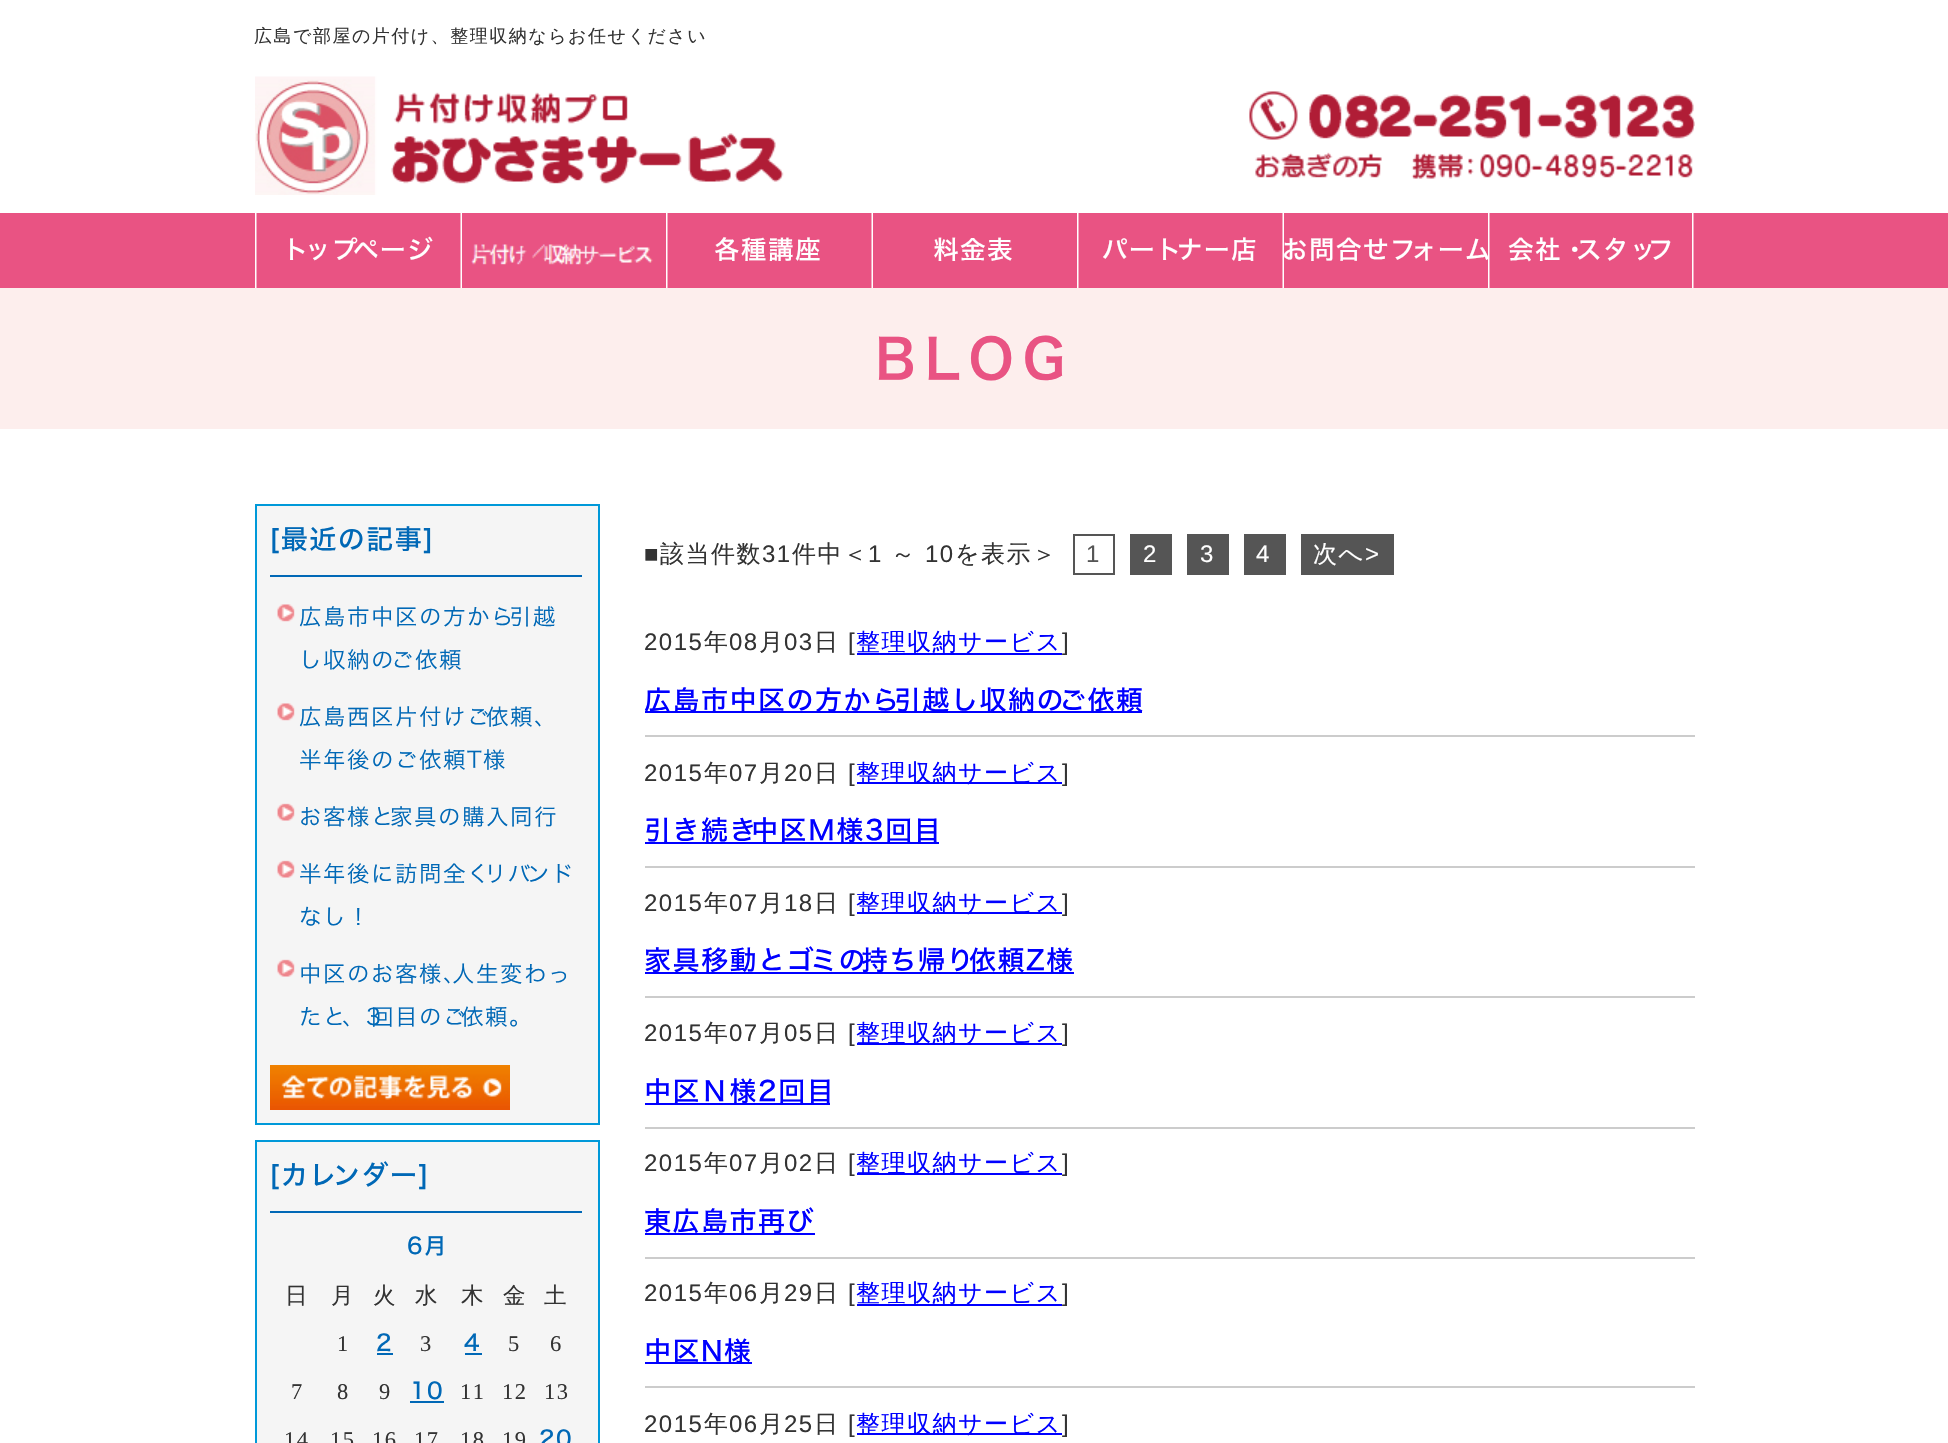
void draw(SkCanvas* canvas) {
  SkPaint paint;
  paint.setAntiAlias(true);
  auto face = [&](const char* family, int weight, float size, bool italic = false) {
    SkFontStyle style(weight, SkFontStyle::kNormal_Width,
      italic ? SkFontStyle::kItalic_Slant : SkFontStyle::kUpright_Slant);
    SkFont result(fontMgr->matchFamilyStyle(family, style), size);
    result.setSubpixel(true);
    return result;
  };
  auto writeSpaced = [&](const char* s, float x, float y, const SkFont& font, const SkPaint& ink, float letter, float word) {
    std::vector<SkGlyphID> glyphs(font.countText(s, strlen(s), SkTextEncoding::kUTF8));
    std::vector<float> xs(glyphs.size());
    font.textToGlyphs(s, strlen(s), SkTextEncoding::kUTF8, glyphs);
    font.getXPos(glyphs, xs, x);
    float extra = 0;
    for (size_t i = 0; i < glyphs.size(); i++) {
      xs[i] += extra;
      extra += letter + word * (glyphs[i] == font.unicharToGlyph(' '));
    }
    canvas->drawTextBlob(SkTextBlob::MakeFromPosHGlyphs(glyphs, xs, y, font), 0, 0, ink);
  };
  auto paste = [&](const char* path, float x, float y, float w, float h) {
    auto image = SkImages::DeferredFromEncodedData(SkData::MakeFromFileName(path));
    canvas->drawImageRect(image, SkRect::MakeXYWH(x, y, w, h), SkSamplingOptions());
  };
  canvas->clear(0xffe95383);
  paint.setColor(0xffffffff);
  canvas->drawRect(SkRect::MakeXYWH(0, 0, 1948, 213), paint);
  paste("img/1.png", 255, 76, 529, 119);
  paste("img/2.png", 1249, 91, 446, 88);
  paste("img/3.png", 255, 213, 2, 75);
  paste("img/4.png", 460, 213, 2, 75);
  paste("img/5.png", 471, 244, 182, 21);
  paste("img/3.png", 666, 213, 2, 75);
  paste("img/4.png", 871, 213, 2, 75);
  paste("img/3.png", 1077, 213, 2, 75);
  paste("img/4.png", 1282, 213, 2, 75);
  paste("img/6.png", 1488, 213, 206, 75);
  canvas->drawRect(SkRect::MakeXYWH(0, 429, 1948, 1014), paint);
  paint.setColor(0xfffdeeed);
  canvas->drawRect(SkRect::MakeXYWH(0, 288, 1948, 141), paint);
  paint.setColor(0xfff5f5f5);
  canvas->drawRect(SkRect::MakeXYWH(256, 505, 343, 619), paint);
  paint.setStroke(true);
  paint.setStrokeWidth(2);
  paint.setColor(0xff0099d9);
  canvas->drawRect(SkRect::MakeXYWH(256, 505, 343, 619), paint);
  paint.setStroke(false);
  paint.setColor(0xff0068b6);
  canvas->drawRect(SkRect::MakeXYWH(270, 575, 312, 2), paint);
  paste("img/7.png", 277, 604, 18, 18);
  paste("img/7.png", 277, 703, 18, 18);
  paste("img/8.png", 277, 803, 18, 18);
  paste("img/8.png", 277, 860, 18, 18);
  paste("img/8.png", 277, 959, 18, 18);
  paste("img/9.png", 270, 1065, 240, 45);
  paint.setColor(0xfff5f5f5);
  canvas->drawRect(SkRect::MakeXYWH(256, 1141, 343, 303), paint);
  paint.setStroke(true);
  paint.setColor(0xff0099d9);
  canvas->drawRect(SkRect::MakeXYWH(256, 1141, 343, 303), paint);
  paint.setStroke(false);
  {
    const struct { float x, y, w, h; SkColor color; } items[] = {
      {270, 1211, 312, 2, 0xff0068b6},
      {377, 1353, 16, 2, 0xff0068b6},
      {465, 1353, 17, 2, 0xff0068b6},
      {410, 1401, 34, 2, 0xff0068b6},
    };
    for (auto [x, y, w, h, color] : items) {
      paint.setColor(color);
      canvas->drawRect(SkRect::MakeXYWH(x, y, w, h), paint);
    }
  }
  paint.setStroke(true);
  paint.setColor(0xff555555);
  canvas->drawRect(SkRect::MakeXYWH(1074, 535, 40, 39), paint);
  paint.setStroke(false);
  {
    const struct { float x, y, w, h; SkColor color; } items[] = {
      {1130, 534, 42, 41, 0xff555555},
      {1187, 534, 42, 41, 0xff555555},
      {1244, 534, 42, 41, 0xff555555},
      {1301, 534, 93, 41, 0xff555555},
      {645, 735, 1050, 2, 0xffcccccc},
      {857, 653, 205, 2, 0xff0000ff},
      {645, 711, 497, 2, 0xff0000ff},
      {645, 866, 1050, 2, 0xffcccccc},
      {857, 782, 205, 2, 0xff0000ff},
      {645, 842, 294, 2, 0xff0000ff},
      {645, 996, 1050, 2, 0xffcccccc},
      {857, 912, 205, 2, 0xff0000ff},
      {645, 972, 429, 2, 0xff0000ff},
      {645, 1127, 1050, 2, 0xffcccccc},
      {857, 1043, 205, 2, 0xff0000ff},
      {645, 1103, 185, 2, 0xff0000ff},
      {645, 1257, 1050, 2, 0xffcccccc},
      {857, 1173, 205, 2, 0xff0000ff},
      {645, 1233, 170, 2, 0xff0000ff},
      {645, 1386, 1050, 2, 0xffcccccc},
      {857, 1304, 205, 2, 0xff0000ff},
      {645, 1362, 107, 2, 0xff0000ff},
      {857, 1433, 205, 2, 0xff0000ff},
    };
    for (auto [x, y, w, h, color] : items) {
      paint.setColor(color);
      canvas->drawRect(SkRect::MakeXYWH(x, y, w, h), paint);
    }
  }
  auto f0 = face("WenQuanYi Zen Hei", 500, 18);
  paint.setColor(0xff333333);
  writeSpaced("広島で部屋の片付け、整理収納ならお任せください", 254, 42, f0, paint, 1.5f, 0);
  auto f1 = face("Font", 500, 25.5f);
  paint.setColor(0xffffffff);
  {
    const struct { const char* s; float x, y; } items[] = {
      {"ト", 283, 259},
      {"ップ", 305, 259},
      {"ページ", 353, 259},
      {"各種講座", 714, 259},
      {"料金表", 933, 259},
      {"パート", 1102, 259},
      {"ナー店", 1177, 259},
      {"お問合せフ", 1282, 259},
      {"ォーム", 1411, 259},
      {"会社・", 1508, 259},
      {"スタッ", 1576, 259},
      {"フ", 1648, 259},
    };
    for (auto [s, x, y] : items) {
      writeSpaced(s, x, y, f1, paint, 1.5f, 0);
    }
  }
  auto f2 = face("Font", 600, 54);
  paint.setColor(0xffe95383);
  writeSpaced("BLOG", 875, 379, f2, paint, 9, 0);
  auto f3 = face("Font", 500, 27);
  paint.setColor(0xff0068b6);
  writeSpaced("[最近の記事]", 269, 549, f3, paint, 1.5f, 0);
  auto f4 = face("Font", 300, 22.5f);
  {
    const struct { const char* s; float x, y; } items[] = {
      {"広島市中区の方から", 299, 625},
      {"引越", 509, 625},
      {"し収納の", 299, 668},
      {"ご依頼", 391, 668},
      {"広島西区片付けご", 299, 725},
      {"依頼、", 486, 725},
      {"半年後のご依頼T様", 299, 768},
      {"お客様と", 299, 825},
      {"家具の購入同行", 390, 825},
      {"半年後に訪問全く", 299, 882},
      {"リバ", 484, 882},
      {"ンド", 527, 882},
      {"なし！", 299, 925},
      {"中区のお客様、", 299, 982},
      {"人生変わっ", 452, 982},
      {"たと", 299, 1025},
      {"、3", 342, 1025},
      {"回目のご", 371, 1025},
      {"依頼。", 461, 1025},
    };
    for (auto [s, x, y] : items) {
      writeSpaced(s, x, y, f4, paint, 1.5f, 0);
    }
  }
  writeSpaced("[カレ", 269, 1185, f3, paint, 1.5f, 0);
  writeSpaced("ンダー]", 333, 1185, f3, paint, 1.5f, 0);
  auto f5 = face("Font", 500, 22.5f);
  writeSpaced("6月", 407, 1254, f5, paint, 1.5f, 0);
  auto f6 = face("WenQuanYi Zen Hei", 500, 22.5f);
  paint.setColor(0xff333333);
  {
    const struct { const char* s; float x, y; } items[] = {
      {"日", 285, 1303},
      {"月", 331, 1303},
      {"火", 373, 1303},
      {"水", 415, 1303},
      {"木", 461, 1303},
      {"金", 503, 1303},
      {"土", 544, 1303},
    };
    for (auto [s, x, y] : items) {
      writeSpaced(s, x, y, f6, paint, 1.5f, 0);
    }
  }
  auto f7 = face("Liberation Serif", 400, 22.5f);
  writeSpaced("1", 337, 1351, f7, paint, 1.5f, 0);
  paint.setColor(0xff0068b6);
  writeSpaced("2", 376, 1351, f5, paint, 1.5f, 0);
  paint.setColor(0xff333333);
  writeSpaced("3", 420, 1351, f7, paint, 1.5f, 0);
  paint.setColor(0xff0068b6);
  writeSpaced("4", 464, 1351, f5, paint, 1.5f, 0);
  paint.setColor(0xff333333);
  {
    const struct { const char* s; float x, y; } items[] = {
      {"5", 508, 1351},
      {"6", 550, 1351},
      {"7", 291, 1399},
      {"8", 337, 1399},
      {"9", 379, 1399},
    };
    for (auto [s, x, y] : items) {
      writeSpaced(s, x, y, f7, paint, 1.5f, 0);
    }
  }
  paint.setColor(0xff0068b6);
  writeSpaced("10", 410, 1399, f5, paint, 1.5f, 0);
  paint.setColor(0xff333333);
  {
    const struct { const char* s; float x, y; } items[] = {
      {"11", 460, 1399},
      {"12", 502, 1399},
      {"13", 544, 1399},
      {"14", 284, 1447},
      {"15", 330, 1447},
      {"16", 372, 1447},
      {"17", 414, 1447},
      {"18", 460, 1447},
      {"19", 502, 1447},
    };
    for (auto [s, x, y] : items) {
      writeSpaced(s, x, y, f7, paint, 1.5f, 0);
    }
  }
  paint.setColor(0xff0068b6);
  writeSpaced("20", 539, 1447, f5, paint, 1.5f, 0);
  auto f8 = face("Liberation Sans", 400, 24);
  paint.setColor(0xff333333);
  writeSpaced("■", 644, 562, f8, paint, 1.5f, 0);
  auto f9 = face("WenQuanYi Zen Hei", 500, 24);
  writeSpaced("該当件数", 660, 562, f9, paint, 1.5f, 0);
  writeSpaced("31", 762, 562, f8, paint, 1.5f, 0);
  writeSpaced("件中＜", 792, 562, f9, paint, 1.5f, 0);
  writeSpaced("1", 868, 562, f8, paint, 1.5f, 0);
  writeSpaced("～", 891, 562, f9, paint, 1.5f, 0);
  writeSpaced("10", 925, 562, f8, paint, 1.5f, 0);
  writeSpaced("を表示＞", 955, 562, f9, paint, 1.5f, 0);
  paint.setColor(0xff555555);
  writeSpaced("1", 1086, 562, f8, paint, 1.5f, 0);
  paint.setColor(0xffffffff);
  {
    const struct { const char* s; float x, y; } items[] = {
      {"2", 1143, 562},
      {"3", 1200, 562},
      {"4", 1256, 562},
    };
    for (auto [s, x, y] : items) {
      writeSpaced(s, x, y, f8, paint, 1.5f, 0);
    }
  }
  writeSpaced("次へ", 1313, 562, f9, paint, 1.5f, 0);
  writeSpaced(">", 1365, 562, f8, paint, 1.5f, 0);
  paint.setColor(0xff333333);
  writeSpaced("2015", 644, 650, f8, paint, 1.5f, 0);
  writeSpaced("年", 704, 650, f9, paint, 1.5f, 0);
  writeSpaced("08", 729, 650, f8, paint, 1.5f, 0);
  writeSpaced("月", 759, 650, f9, paint, 1.5f, 0);
  writeSpaced("03", 784, 650, f8, paint, 1.5f, 0);
  writeSpaced("日", 814, 650, f9, paint, 1.5f, 0);
  writeSpaced("[", 848, 650, f8, paint, 1.5f, 0);
  paint.setColor(0xff0000ff);
  writeSpaced("整理収納サービス", 856, 650, f9, paint, 1.5f, 0);
  paint.setColor(0xff333333);
  writeSpaced("]", 1062, 650, f8, paint, 1.5f, 0);
  paint.setColor(0xff0000ff);
  writeSpaced("広島市中区の方から", 644, 710, f3, paint, 1.5f, 0);
  writeSpaced("引越し収納の", 894, 710, f3, paint, 1.5f, 0);
  writeSpaced("ご依頼", 1059, 710, f3, paint, 1.5f, 0);
  paint.setColor(0xff333333);
  writeSpaced("2015", 644, 781, f8, paint, 1.5f, 0);
  writeSpaced("年", 704, 781, f9, paint, 1.5f, 0);
  writeSpaced("07", 729, 781, f8, paint, 1.5f, 0);
  writeSpaced("月", 759, 781, f9, paint, 1.5f, 0);
  writeSpaced("20", 784, 781, f8, paint, 1.5f, 0);
  writeSpaced("日", 814, 781, f9, paint, 1.5f, 0);
  writeSpaced("[", 848, 781, f8, paint, 1.5f, 0);
  paint.setColor(0xff0000ff);
  writeSpaced("整理収納サービス", 856, 781, f9, paint, 1.5f, 0);
  paint.setColor(0xff333333);
  writeSpaced("]", 1062, 781, f8, paint, 1.5f, 0);
  paint.setColor(0xff0000ff);
  writeSpaced("引き続き", 644, 840, f3, paint, 1.5f, 0);
  writeSpaced("中区Ｍ様3回目", 751, 840, f3, paint, 1.5f, 0);
  paint.setColor(0xff333333);
  writeSpaced("2015", 644, 911, f8, paint, 1.5f, 0);
  writeSpaced("年", 704, 911, f9, paint, 1.5f, 0);
  writeSpaced("07", 729, 911, f8, paint, 1.5f, 0);
  writeSpaced("月", 759, 911, f9, paint, 1.5f, 0);
  writeSpaced("18", 784, 911, f8, paint, 1.5f, 0);
  writeSpaced("日", 814, 911, f9, paint, 1.5f, 0);
  writeSpaced("[", 848, 911, f8, paint, 1.5f, 0);
  paint.setColor(0xff0000ff);
  writeSpaced("整理収納サービス", 856, 911, f9, paint, 1.5f, 0);
  paint.setColor(0xff333333);
  writeSpaced("]", 1062, 911, f8, paint, 1.5f, 0);
  paint.setColor(0xff0000ff);
  writeSpaced("家具移動とゴ", 644, 970, f3, paint, 1.5f, 0);
  writeSpaced("ミの", 810, 970, f3, paint, 1.5f, 0);
  writeSpaced("持ち帰り", 861, 970, f3, paint, 1.5f, 0);
  writeSpaced("依頼Z様", 969, 970, f3, paint, 1.5f, 0);
  paint.setColor(0xff333333);
  writeSpaced("2015", 644, 1041, f8, paint, 1.5f, 0);
  writeSpaced("年", 704, 1041, f9, paint, 1.5f, 0);
  writeSpaced("07", 729, 1041, f8, paint, 1.5f, 0);
  writeSpaced("月", 759, 1041, f9, paint, 1.5f, 0);
  writeSpaced("05", 784, 1041, f8, paint, 1.5f, 0);
  writeSpaced("日", 814, 1041, f9, paint, 1.5f, 0);
  writeSpaced("[", 848, 1041, f8, paint, 1.5f, 0);
  paint.setColor(0xff0000ff);
  writeSpaced("整理収納サービス", 856, 1041, f9, paint, 1.5f, 0);
  paint.setColor(0xff333333);
  writeSpaced("]", 1062, 1041, f8, paint, 1.5f, 0);
  paint.setColor(0xff0000ff);
  writeSpaced("中区Ｎ様2回目", 644, 1101, f3, paint, 1.5f, 0);
  paint.setColor(0xff333333);
  writeSpaced("2015", 644, 1171, f8, paint, 1.5f, 0);
  writeSpaced("年", 704, 1171, f9, paint, 1.5f, 0);
  writeSpaced("07", 729, 1171, f8, paint, 1.5f, 0);
  writeSpaced("月", 759, 1171, f9, paint, 1.5f, 0);
  writeSpaced("02", 784, 1171, f8, paint, 1.5f, 0);
  writeSpaced("日", 814, 1171, f9, paint, 1.5f, 0);
  writeSpaced("[", 848, 1171, f8, paint, 1.5f, 0);
  paint.setColor(0xff0000ff);
  writeSpaced("整理収納サービス", 856, 1171, f9, paint, 1.5f, 0);
  paint.setColor(0xff333333);
  writeSpaced("]", 1062, 1171, f8, paint, 1.5f, 0);
  paint.setColor(0xff0000ff);
  writeSpaced("東広島市再び", 644, 1231, f3, paint, 1.5f, 0);
  paint.setColor(0xff333333);
  writeSpaced("2015", 644, 1301, f8, paint, 1.5f, 0);
  writeSpaced("年", 704, 1301, f9, paint, 1.5f, 0);
  writeSpaced("06", 729, 1301, f8, paint, 1.5f, 0);
  writeSpaced("月", 759, 1301, f9, paint, 1.5f, 0);
  writeSpaced("29", 784, 1301, f8, paint, 1.5f, 0);
  writeSpaced("日", 814, 1301, f9, paint, 1.5f, 0);
  writeSpaced("[", 848, 1301, f8, paint, 1.5f, 0);
  paint.setColor(0xff0000ff);
  writeSpaced("整理収納サービス", 856, 1301, f9, paint, 1.5f, 0);
  paint.setColor(0xff333333);
  writeSpaced("]", 1062, 1301, f8, paint, 1.5f, 0);
  paint.setColor(0xff0000ff);
  writeSpaced("中区N様", 644, 1361, f3, paint, 1.5f, 0);
  paint.setColor(0xff333333);
  writeSpaced("2015", 644, 1432, f8, paint, 1.5f, 0);
  writeSpaced("年", 704, 1432, f9, paint, 1.5f, 0);
  writeSpaced("06", 729, 1432, f8, paint, 1.5f, 0);
  writeSpaced("月", 759, 1432, f9, paint, 1.5f, 0);
  writeSpaced("25", 784, 1432, f8, paint, 1.5f, 0);
  writeSpaced("日", 814, 1432, f9, paint, 1.5f, 0);
  writeSpaced("[", 848, 1432, f8, paint, 1.5f, 0);
  paint.setColor(0xff0000ff);
  writeSpaced("整理収納サービス", 856, 1432, f9, paint, 1.5f, 0);
  paint.setColor(0xff333333);
  writeSpaced("]", 1062, 1432, f8, paint, 1.5f, 0);
}
